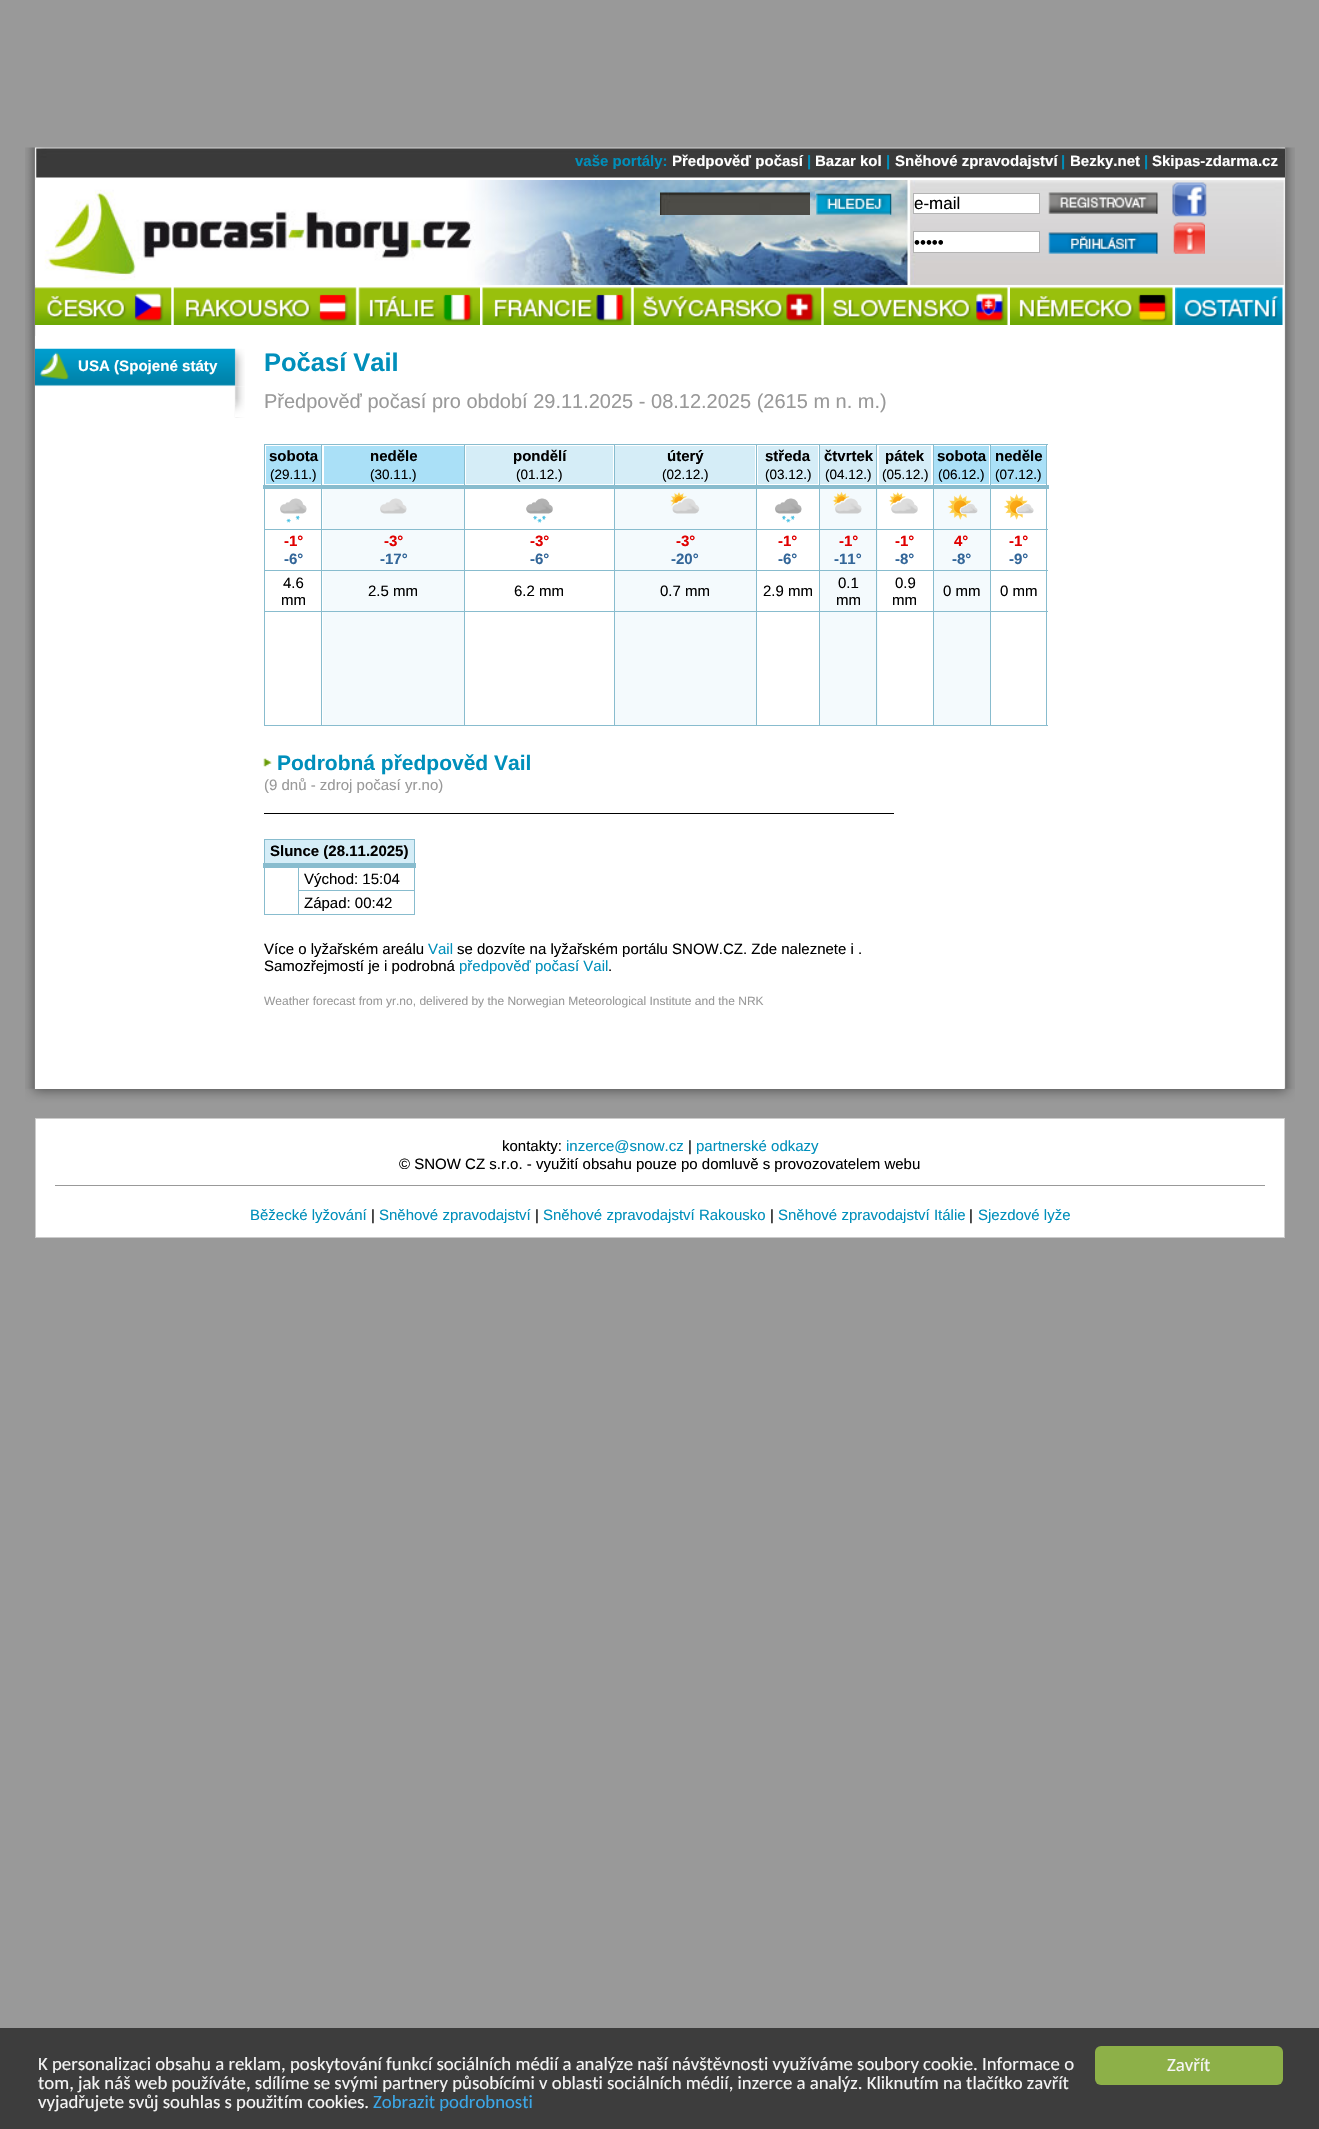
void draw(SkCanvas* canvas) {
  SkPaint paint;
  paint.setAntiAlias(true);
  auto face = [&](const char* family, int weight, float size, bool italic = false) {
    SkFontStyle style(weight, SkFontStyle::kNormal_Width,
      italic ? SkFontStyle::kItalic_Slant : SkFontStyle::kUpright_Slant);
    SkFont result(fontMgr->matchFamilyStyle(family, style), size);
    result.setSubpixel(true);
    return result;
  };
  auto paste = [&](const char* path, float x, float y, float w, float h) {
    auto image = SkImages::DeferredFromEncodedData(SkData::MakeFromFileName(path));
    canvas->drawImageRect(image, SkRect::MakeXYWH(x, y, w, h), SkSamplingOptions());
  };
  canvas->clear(0xff999999);
  paste("img/1.png", 25, 147, 1270, 942);
  paste("img/2.png", 36, 147, 1249, 33);
  paste("img/3.png", 35, 180, 1249, 105);
  paste("img/4.png", 660, 192, 150, 23);
  paste("img/5.png", 816, 193, 76, 22);
  paint.setColor(0xffffffff);
  canvas->drawRect(SkRect::MakeXYWH(913.5f, 193.5f, 126, 20), paint);
  paint.setStroke(true);
  paint.setStrokeWidth(1);
  paint.setColor(0xffb3b3b3);
  canvas->drawRect(SkRect::MakeXYWH(913.5f, 193.5f, 126, 20), paint);
  paste("img/6.png", 1048, 192, 110, 22);
  paste("img/7.png", 1172, 182, 35, 35);
  paint.setStroke(false);
  paint.setColor(0xffffffff);
  canvas->drawRect(SkRect::MakeXYWH(913.5f, 231.5f, 126, 21), paint);
  paint.setStroke(true);
  paint.setColor(0xffb3b3b3);
  canvas->drawRect(SkRect::MakeXYWH(913.5f, 231.5f, 126, 21), paint);
  paste("img/8.png", 1048, 232, 110, 22);
  paste("img/9.png", 1173, 222, 32, 32);
  paste("img/10.png", 35, 287, 137, 38);
  paste("img/11.png", 173, 287, 184, 38);
  paste("img/12.png", 358, 287, 122, 38);
  paste("img/13.png", 482, 287, 150, 38);
  paste("img/14.png", 633, 287, 189, 38);
  paste("img/15.png", 823, 287, 185, 38);
  paste("img/16.png", 1010, 287, 163, 38);
  paste("img/17.png", 1175, 287, 108, 38);
  paste("img/31.png", 25, 1088, 1270, 17);
  paint.setStroke(false);
  paint.setColor(0xffffffff);
  canvas->drawRect(SkRect::MakeXYWH(35, 336, 1249, 753), paint);
  paste("img/18.png", 35, 348, 210, 39);
  paste("img/19.png", 35, 386, 210, 32);
  paste("img/20.png", 235, 399, 10, 19);
  {
    const struct { float x, y, w, h; SkColor color; } items[] = {
      {264, 444, 784, 1, 0xff88bcce},
      {1046, 444, 1, 282, 0xff88bcce},
      {264, 725, 784, 1, 0xff88bcce},
      {264, 444, 1, 282, 0xff88bcce},
      {266, 446, 55, 38, 0xffaae0f7},
      {324, 446, 140, 38, 0xffaae0f7},
      {466, 446, 147, 38, 0xffd5edf7},
      {615, 446, 140, 38, 0xffd5edf7},
      {758, 446, 60, 38, 0xffd5edf7},
      {820, 446, 56, 38, 0xffd5edf7},
      {879, 446, 52, 38, 0xffd5edf7},
      {934, 446, 55, 38, 0xffaae0f7},
      {991, 446, 55, 38, 0xffaae0f7},
      {990, 529, 58, 1, 0xff88bcce},
      {990, 570, 58, 1, 0xff88bcce},
      {934, 571, 56, 154, 0xfff4fafd},
      {990, 611, 58, 1, 0xff88bcce},
      {990, 611, 1, 115, 0xff88bcce},
      {933, 611, 58, 1, 0xff88bcce},
      {990, 570, 1, 43, 0xff88bcce},
      {933, 570, 58, 1, 0xff88bcce},
      {990, 529, 1, 42, 0xff88bcce},
      {933, 529, 58, 1, 0xff88bcce},
      {820, 571, 58, 154, 0xfff4fafd},
      {933, 611, 1, 115, 0xff88bcce},
      {876, 611, 58, 1, 0xff88bcce},
      {933, 570, 1, 43, 0xff88bcce},
      {876, 570, 58, 1, 0xff88bcce},
      {933, 529, 1, 42, 0xff88bcce},
      {876, 529, 58, 1, 0xff88bcce},
      {820, 530, 58, 40, 0xfff4fafd},
      {876, 611, 1, 115, 0xff88bcce},
      {819, 611, 59, 1, 0xff88bcce},
      {876, 570, 1, 43, 0xff88bcce},
      {819, 570, 59, 1, 0xff88bcce},
      {876, 529, 1, 42, 0xff88bcce},
      {819, 529, 59, 1, 0xff88bcce},
      {819, 611, 1, 115, 0xff88bcce},
      {756, 611, 64, 1, 0xff88bcce},
      {819, 570, 1, 43, 0xff88bcce},
      {756, 570, 64, 1, 0xff88bcce},
      {819, 529, 1, 42, 0xff88bcce},
      {756, 529, 64, 1, 0xff88bcce},
      {615, 571, 141, 154, 0xfff4fafd},
      {756, 611, 1, 115, 0xff88bcce},
      {614, 611, 144, 1, 0xff88bcce},
      {756, 570, 1, 43, 0xff88bcce},
      {614, 570, 144, 1, 0xff88bcce},
      {756, 529, 1, 42, 0xff88bcce},
      {614, 529, 144, 1, 0xff88bcce},
      {614, 611, 1, 115, 0xff88bcce},
      {464, 611, 151, 1, 0xff88bcce},
      {614, 570, 1, 43, 0xff88bcce},
      {464, 570, 151, 1, 0xff88bcce},
      {614, 529, 1, 42, 0xff88bcce},
      {464, 529, 151, 1, 0xff88bcce},
      {323, 571, 141, 154, 0xfff4fafd},
      {464, 611, 1, 115, 0xff88bcce},
      {321, 611, 144, 1, 0xff88bcce},
      {464, 570, 1, 43, 0xff88bcce},
      {321, 570, 144, 1, 0xff88bcce},
      {464, 529, 1, 42, 0xff88bcce},
      {321, 529, 144, 1, 0xff88bcce},
      {321, 611, 1, 115, 0xff88bcce},
      {264, 611, 59, 1, 0xff88bcce},
      {321, 570, 1, 43, 0xff88bcce},
      {264, 570, 59, 1, 0xff88bcce},
      {321, 529, 1, 42, 0xff88bcce},
      {264, 529, 59, 1, 0xff88bcce},
      {321, 444, 1, 86, 0xff88bcce},
      {464, 444, 1, 86, 0xff88bcce},
      {614, 444, 1, 86, 0xff88bcce},
      {756, 444, 1, 86, 0xff88bcce},
      {819, 444, 1, 86, 0xff88bcce},
      {820, 489, 58, 40, 0xfff4fafd},
      {876, 444, 1, 86, 0xff88bcce},
      {933, 444, 1, 86, 0xff88bcce},
      {990, 444, 1, 86, 0xff88bcce},
      {263, 485, 786, 4, 0xff88bcce},
    };
    for (auto [x, y, w, h, color] : items) {
      paint.setColor(color);
      canvas->drawRect(SkRect::MakeXYWH(x, y, w, h), paint);
    }
  }
  paste("img/21.png", 280, 498, 27, 25);
  paint.setColor(0xfff4fafd);
  canvas->drawRect(SkRect::MakeXYWH(323, 489, 141, 40), paint);
  paste("img/22.png", 380, 498, 27, 16);
  paste("img/23.png", 526, 498, 27, 25);
  canvas->drawRect(SkRect::MakeXYWH(615, 489, 141, 40), paint);
  paste("img/24.png", 670, 492, 30, 22);
  paste("img/25.png", 775, 498, 27, 25);
  paste("img/26.png", 832, 492, 30, 22);
  paste("img/27.png", 888, 492, 30, 22);
  canvas->drawRect(SkRect::MakeXYWH(934, 489, 56, 40), paint);
  paste("img/28.png", 947, 494, 31, 26);
  paste("img/29.png", 1004, 494, 30, 26);
  {
    const struct { float x, y, w, h; SkColor color; } items[] = {
      {323, 530, 141, 40, 0xfff4fafd},
      {615, 530, 141, 40, 0xfff4fafd},
      {934, 530, 56, 40, 0xfff4fafd},
    };
    for (auto [x, y, w, h, color] : items) {
      paint.setColor(color);
      canvas->drawRect(SkRect::MakeXYWH(x, y, w, h), paint);
    }
  }
  paste("img/30.png", 263, 758, 9, 9);
  {
    const struct { float x, y, w, h; SkColor color; } items[] = {
      {264, 813, 630, 1, 0xff000000},
      {264, 839, 151, 1, 0xff88bcce},
      {414, 839, 1, 76, 0xff88bcce},
      {264, 914, 151, 1, 0xff88bcce},
      {264, 839, 1, 76, 0xff88bcce},
      {265, 840, 149, 23, 0xffd5edf7},
      {298, 890, 117, 1, 0xff88bcce},
      {298, 865, 1, 50, 0xff88bcce},
      {263, 863, 153, 5, 0xff88bcce},
    };
    for (auto [x, y, w, h, color] : items) {
      paint.setColor(color);
      canvas->drawRect(SkRect::MakeXYWH(x, y, w, h), paint);
    }
  }
  paint.setColor(0xffffffff);
  canvas->drawRect(SkRect::MakeXYWH(35.5f, 1118.5f, 1249, 119), paint);
  paint.setStroke(true);
  paint.setColor(0xffcccccc);
  canvas->drawRect(SkRect::MakeXYWH(35.5f, 1118.5f, 1249, 119), paint);
  paint.setStroke(false);
  paint.setColor(0xff999999);
  canvas->drawRect(SkRect::MakeXYWH(55, 1185, 1210, 1), paint);
  paint.setColor(0xff3d3d3d);
  canvas->drawRect(SkRect::MakeXYWH(0, 2028, 1319, 101), paint);
  paint.setColor(0xff8db048);
  canvas->drawRoundRect(SkRect::MakeXYWH(1095, 2046, 188, 39), 6, 6, paint);
  auto f0 = face("Liberation Sans", 700, 15);
  paint.setColor(0xff008fbb);
  canvas->drawString("vaše portály:", 575, 166, f0, paint);
  paint.setColor(0xffffffff);
  canvas->drawString("Předpověď počasí", 672, 166, f0, paint);
  paint.setColor(0xff008fbb);
  canvas->drawString("|", 807, 166, f0, paint);
  paint.setColor(0xffffffff);
  canvas->drawString("Bazar kol", 815, 166, f0, paint);
  paint.setColor(0xff008fbb);
  canvas->drawString("|", 886, 166, f0, paint);
  paint.setColor(0xffffffff);
  canvas->drawString("Sněhové zpravodajství", 895, 166, f0, paint);
  paint.setColor(0xff008fbb);
  canvas->drawString("|", 1061, 166, f0, paint);
  paint.setColor(0xffffffff);
  canvas->drawString("Bezky.net", 1070, 166, f0, paint);
  paint.setColor(0xff008fbb);
  canvas->drawString("|", 1144, 166, f0, paint);
  paint.setColor(0xffffffff);
  canvas->drawString("Skipas-zdarma.cz", 1152, 166, f0, paint);
  auto f1 = face("Liberation Sans", 400, 17);
  paint.setColor(0xff000000);
  canvas->drawString("e-mail", 914, 209, f1, paint);
  canvas->drawString("•••••", 914, 248, f1, paint);
  auto f2 = face("Liberation Sans", 700, 15.1f);
  paint.setColor(0xffffffff);
  canvas->drawString("USA (Spojené státy", 78, 371, f2, paint);
  auto f3 = face("Liberation Sans", 700, 25.5f);
  paint.setColor(0xff008fbb);
  canvas->drawString("Počasí Vail", 264, 371, f3, paint);
  auto f4 = face("Liberation Sans", 400, 20);
  paint.setColor(0xff999999);
  canvas->drawString("Předpověď počasí pro období 29.11.2025 - 08.12.2025 (2615 m n. m.)", 264, 408, f4, paint);
  paint.setColor(0xff000000);
  canvas->drawString("sobota", 269, 461, f0, paint);
  auto f5 = face("Liberation Sans", 400, 13.5f);
  canvas->drawString("(29.11.)", 270, 479, f5, paint);
  canvas->drawString("neděle", 370, 461, f0, paint);
  canvas->drawString("(30.11.)", 370, 479, f5, paint);
  canvas->drawString("pondělí", 513, 461, f0, paint);
  canvas->drawString("(01.12.)", 516, 479, f5, paint);
  canvas->drawString("úterý", 667, 461, f0, paint);
  canvas->drawString("(02.12.)", 662, 479, f5, paint);
  canvas->drawString("středa", 765, 461, f0, paint);
  canvas->drawString("(03.12.)", 765, 479, f5, paint);
  canvas->drawString("čtvrtek", 824, 461, f0, paint);
  canvas->drawString("(04.12.)", 825, 479, f5, paint);
  canvas->drawString("pátek", 885, 461, f0, paint);
  canvas->drawString("(05.12.)", 882, 479, f5, paint);
  canvas->drawString("sobota", 937, 461, f0, paint);
  canvas->drawString("(06.12.)", 938, 479, f5, paint);
  canvas->drawString("neděle", 995, 461, f0, paint);
  canvas->drawString("(07.12.)", 995, 479, f5, paint);
  paint.setColor(0xffe00000);
  canvas->drawString("-1°", 284, 546, f0, paint);
  paint.setColor(0xff336699);
  canvas->drawString("-6°", 284, 564, f0, paint);
  paint.setColor(0xffe00000);
  canvas->drawString("-3°", 384, 546, f0, paint);
  paint.setColor(0xff336699);
  canvas->drawString("-17°", 380, 564, f0, paint);
  paint.setColor(0xffe00000);
  canvas->drawString("-3°", 530, 546, f0, paint);
  paint.setColor(0xff336699);
  canvas->drawString("-6°", 530, 564, f0, paint);
  paint.setColor(0xffe00000);
  canvas->drawString("-3°", 676, 546, f0, paint);
  paint.setColor(0xff336699);
  canvas->drawString("-20°", 671, 564, f0, paint);
  paint.setColor(0xffe00000);
  canvas->drawString("-1°", 778, 546, f0, paint);
  paint.setColor(0xff336699);
  canvas->drawString("-6°", 778, 564, f0, paint);
  paint.setColor(0xffe00000);
  canvas->drawString("-1°", 839, 546, f0, paint);
  paint.setColor(0xff336699);
  canvas->drawString("-11°", 834, 564, f0, paint);
  paint.setColor(0xffe00000);
  canvas->drawString("-1°", 895, 546, f0, paint);
  paint.setColor(0xff336699);
  canvas->drawString("-8°", 895, 564, f0, paint);
  paint.setColor(0xffe00000);
  canvas->drawString("4°", 954, 546, f0, paint);
  paint.setColor(0xff336699);
  canvas->drawString("-8°", 952, 564, f0, paint);
  paint.setColor(0xffe00000);
  canvas->drawString("-1°", 1009, 546, f0, paint);
  paint.setColor(0xff336699);
  canvas->drawString("-9°", 1009, 564, f0, paint);
  auto f6 = face("Liberation Sans", 400, 15);
  paint.setColor(0xff000000);
  {
    const struct { const char* s; float x, y; } items[] = {
      {"4.6", 283, 588},
      {"mm", 281, 605},
      {"2.5 mm", 368, 596},
      {"6.2 mm", 514, 596},
      {"0.7 mm", 660, 596},
      {"2.9 mm", 763, 596},
      {"0.1", 838, 588},
      {"mm", 836, 605},
      {"0.9", 895, 588},
      {"mm", 892, 605},
      {"0 mm", 943, 596},
      {"0 mm", 1000, 596},
    };
    for (auto [s, x, y] : items) {
      canvas->drawString(s, x, y, f6, paint);
    }
  }
  auto f7 = face("Liberation Sans", 700, 21);
  paint.setColor(0xff008fbb);
  canvas->drawString("Podrobná předpověd Vail", 277, 770, f7, paint);
  paint.setColor(0xff999999);
  canvas->drawString("(9 dnů - zdroj počasí yr.no)", 264, 790, f6, paint);
  paint.setColor(0xff000000);
  canvas->drawString("Slunce (28.11.2025)", 270, 856, f0, paint);
  {
    const struct { const char* s; float x, y; } items[] = {
      {"Východ: 15:04", 304, 884},
      {"Západ: 00:42", 304, 908},
      {"Více o lyžařském areálu", 264, 954},
    };
    for (auto [s, x, y] : items) {
      canvas->drawString(s, x, y, f6, paint);
    }
  }
  paint.setColor(0xff008fbb);
  canvas->drawString("Vail", 428, 954, f6, paint);
  paint.setColor(0xff000000);
  canvas->drawString("se dozvíte na lyžařském portálu SNOW.CZ. Zde naleznete i .", 457, 954, f6, paint);
  canvas->drawString("Samozřejmostí je i podrobná", 264, 971, f6, paint);
  paint.setColor(0xff008fbb);
  canvas->drawString("předpověď počasí Vail", 459, 971, f6, paint);
  paint.setColor(0xff000000);
  canvas->drawString(".", 608, 971, f6, paint);
  auto f8 = face("Liberation Sans", 400, 12);
  paint.setColor(0xff999999);
  canvas->drawString("Weather forecast from yr.no, delivered by the Norwegian Meteorological Institute and the NRK", 264, 1005, f8, paint);
  paint.setColor(0xff000000);
  canvas->drawString("kontakty:", 502, 1151, f6, paint);
  paint.setColor(0xff008fbb);
  canvas->drawString("inzerce@snow.cz", 566, 1151, f6, paint);
  paint.setColor(0xff000000);
  canvas->drawString("|", 688, 1151, f6, paint);
  paint.setColor(0xff008fbb);
  canvas->drawString("partnerské odkazy", 696, 1151, f6, paint);
  paint.setColor(0xff000000);
  canvas->drawString("© SNOW CZ s.r.o. - využití obsahu pouze po domluvě s provozovatelem webu", 399, 1169, f6, paint);
  paint.setColor(0xff008fbb);
  canvas->drawString("Běžecké lyžování", 250, 1220, f6, paint);
  paint.setColor(0xff000000);
  canvas->drawString("|", 371, 1220, f6, paint);
  paint.setColor(0xff008fbb);
  canvas->drawString("Sněhové zpravodajství", 379, 1220, f6, paint);
  paint.setColor(0xff000000);
  canvas->drawString("|", 535, 1220, f6, paint);
  paint.setColor(0xff008fbb);
  canvas->drawString("Sněhové zpravodajství Rakousko", 543, 1220, f6, paint);
  paint.setColor(0xff000000);
  canvas->drawString("|", 770, 1220, f6, paint);
  paint.setColor(0xff008fbb);
  canvas->drawString("Sněhové zpravodajství Itálie", 778, 1220, f6, paint);
  paint.setColor(0xff000000);
  canvas->drawString("|", 969, 1220, f6, paint);
  paint.setColor(0xff008fbb);
  canvas->drawString("Sjezdové lyže", 978, 1220, f6, paint);
  auto f9 = face("Carlito", 400, 18.75f);
  paint.setColor(0xfff5f5f5);
  {
    const struct { const char* s; float x, y; } items[] = {
      {"K personalizaci obsahu a reklam, poskytování funkcí sociálních médií a analýze naší návštěvnosti využíváme soubory cookie. Informace o", 38, 2070},
      {"tom, jak náš web používáte, sdílíme se svými partnery působícími v oblasti sociálních médií, inzerce a analýz. Kliknutím na tlačítko zavřít", 38, 2089},
      {"vyjadřujete svůj souhlas s použitím cookies.", 38, 2108},
    };
    for (auto [s, x, y] : items) {
      canvas->drawString(s, x, y, f9, paint);
    }
  }
  paint.setColor(0xff3ba7e7);
  canvas->drawString("Zobrazit podrobnosti", 373, 2108, f9, paint);
  paint.setColor(0xfff5f5f5);
  canvas->drawString("Zavřít", 1167, 2071, f9, paint);
}
